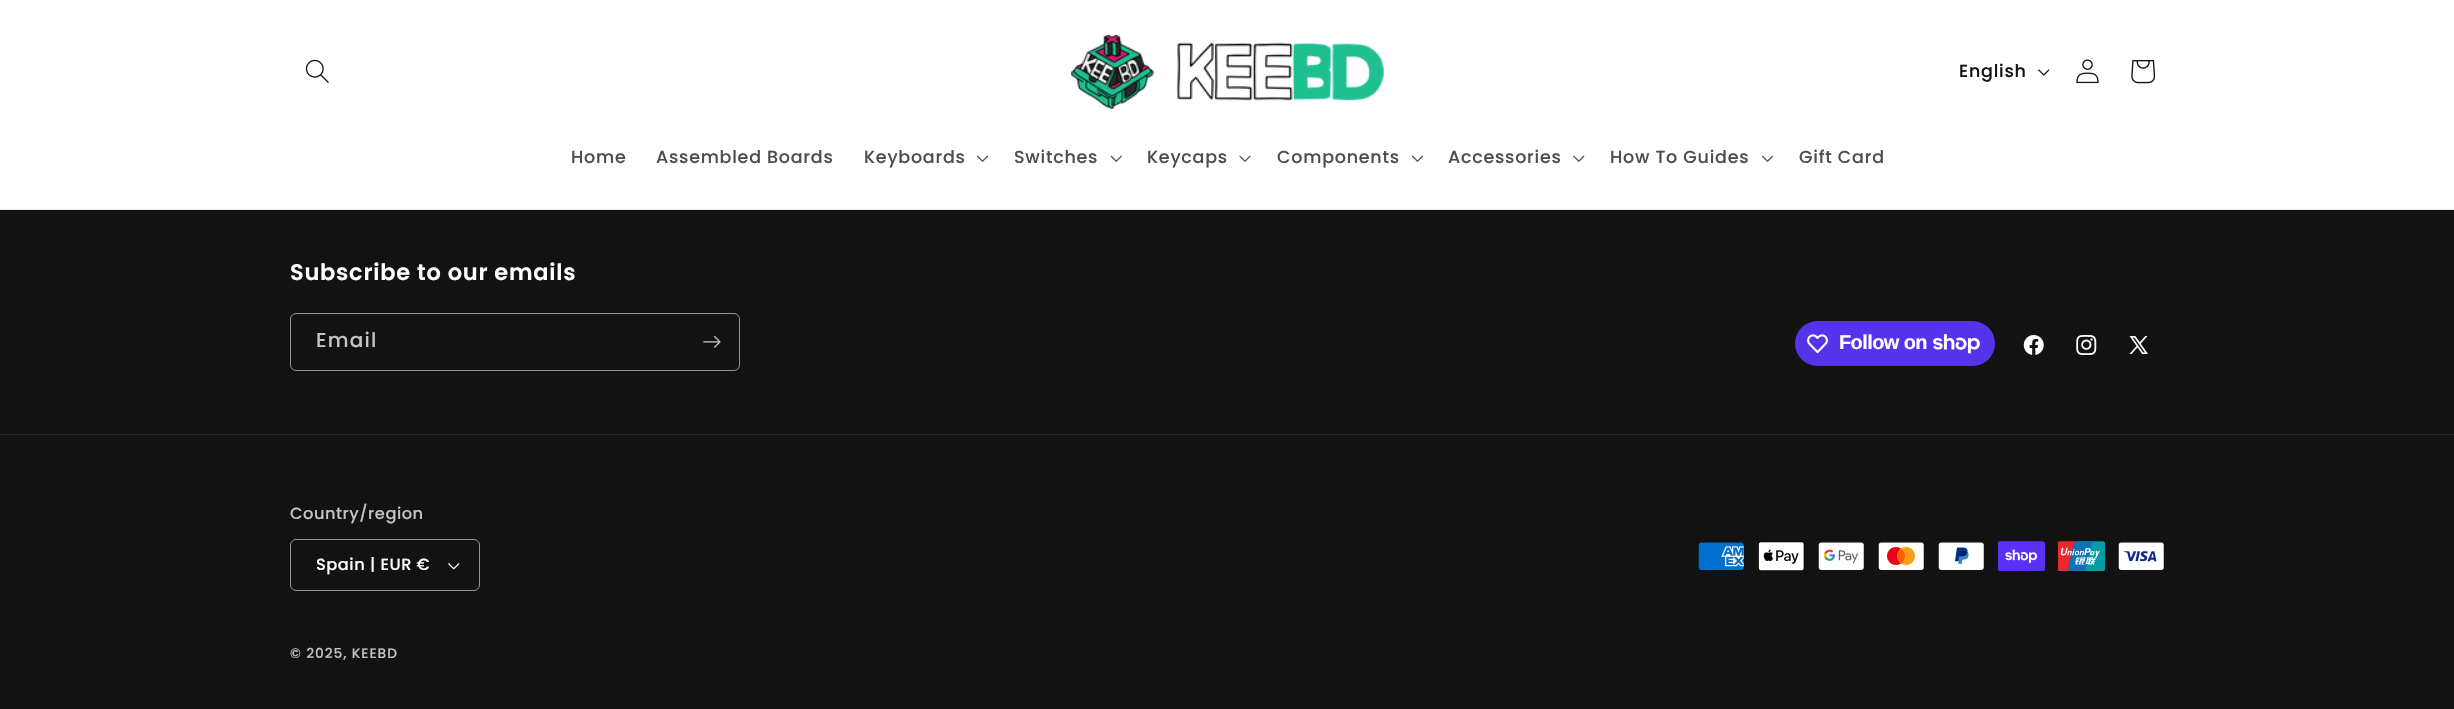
void draw(SkCanvas* canvas) {
  SkPaint paint;
  paint.setAntiAlias(true);
  auto face = [&](const char* family, int weight, float size, bool italic = false) {
    SkFontStyle style(weight, SkFontStyle::kNormal_Width,
      italic ? SkFontStyle::kItalic_Slant : SkFontStyle::kUpright_Slant);
    SkFont result(fontMgr->matchFamilyStyle(family, style), size);
    result.setSubpixel(true);
    return result;
  };
  auto writeSpaced = [&](const char* s, float x, float y, const SkFont& font, const SkPaint& ink, float letter, float word) {
    std::vector<SkGlyphID> glyphs(font.countText(s, strlen(s), SkTextEncoding::kUTF8));
    std::vector<float> xs(glyphs.size());
    font.textToGlyphs(s, strlen(s), SkTextEncoding::kUTF8, glyphs);
    font.getXPos(glyphs, xs, x);
    float extra = 0;
    for (size_t i = 0; i < glyphs.size(); i++) {
      xs[i] += extra;
      extra += letter + word * (glyphs[i] == font.unicharToGlyph(' '));
    }
    canvas->drawTextBlob(SkTextBlob::MakeFromPosHGlyphs(glyphs, xs, y, font), 0, 0, ink);
  };
  auto paste = [&](const char* path, float x, float y, float w, float h) {
    auto image = SkImages::DeferredFromEncodedData(SkData::MakeFromFileName(path));
    canvas->drawImageRect(image, SkRect::MakeXYWH(x, y, w, h), SkSamplingOptions());
  };
  canvas->clear(0xff121212);
  paint.setColor(0xffffffff);
  canvas->drawRect(SkRect::MakeXYWH(0, 0, 2454, 209), paint);
  paint.setColor(0xffececec);
  canvas->drawRect(SkRect::MakeXYWH(0, 209, 2454, 1), paint);
  paste("img/1.png", 305, 59, 24, 24);
  paste("img/2.png", 1071, 34, 313, 75);
  paste("img/3.png", 2038, 69, 12, 7);
  paste("img/4.png", 2076, 59, 23, 25);
  paste("img/5.png", 2131, 60, 25, 24);
  paste("img/6.png", 976, 155, 13, 7);
  paste("img/7.png", 1110, 155, 12, 7);
  paste("img/8.png", 1239, 155, 12, 7);
  paste("img/6.png", 1411, 155, 13, 7);
  paste("img/9.png", 1573, 155, 12, 7);
  paste("img/6.png", 1761, 155, 13, 7);
  paint.setStroke(true);
  paint.setStrokeWidth(1);
  paint.setColor(0xff949494);
  canvas->drawRoundRect(SkRect::MakeXYWH(290.5f, 313.5f, 449, 57), 5.5f, 5.5f, paint);
  paste("img/10.png", 703, 335, 18, 13);
  paint.setStroke(false);
  paint.setColor(0xff5433eb);
  canvas->drawRoundRect(SkRect::MakeXYWH(1795, 321, 200, 45), 22.5f, 22.5f, paint);
  paste("img/11.png", 1807, 334, 21, 20);
  paste("img/12.png", 1933, 334, 47, 20);
  paste("img/13.png", 2023, 335, 21, 20);
  paste("img/14.png", 2076, 335, 21, 20);
  paste("img/15.png", 2129, 336, 19, 18);
  paint.setColor(0xff252525);
  canvas->drawRect(SkRect::MakeXYWH(0, 434, 2454, 1), paint);
  paste("img/16.png", 448, 563, 12, 7);
  paint.setStroke(true);
  paint.setColor(0xff949494);
  canvas->drawRoundRect(SkRect::MakeXYWH(290.5f, 539.5f, 189, 51), 5.5f, 5.5f, paint);
  paste("img/17.png", 1698, 542, 46, 28);
  paste("img/18.png", 1758, 541, 47, 30);
  paste("img/19.png", 1818, 542, 46, 28);
  paste("img/20.png", 1878, 542, 46, 28);
  paste("img/21.png", 1938, 542, 46, 28);
  paste("img/22.png", 1998, 541, 47, 30);
  paste("img/23.png", 2058, 541, 47, 30);
  paste("img/24.png", 2118, 542, 46, 28);
  auto f0 = face("Poppins", 500, 17.5f);
  paint.setStroke(false);
  paint.setColor(0xff121212);
  writeSpaced("English", 1959, 77, f0, paint, 0.75f, 0);
  paint.setColor(0xff4d4d4d);
  {
    const struct { const char* s; float x, y; } items[] = {
      {"Home", 571, 163},
      {"Assembled Boards", 656, 163},
      {"Keyboards", 864, 163},
      {"Switches", 1014, 163},
      {"Keycaps", 1147, 163},
      {"Components", 1277, 163},
      {"Accessories", 1448, 163},
      {"How To Guides", 1610, 163},
      {"Gift Card", 1799, 163},
    };
    for (auto [s, x, y] : items) {
      writeSpaced(s, x, y, f0, paint, 0.75f, 0);
    }
  }
  auto f1 = face("Poppins", 600, 22.5f);
  paint.setColor(0xffffffff);
  writeSpaced("Subscribe to our emails", 290, 280, f1, paint, 0.75f, 0);
  auto f2 = face("Poppins", 500, 20);
  paint.setColor(0xffc4c4c4);
  writeSpaced("Email", 316, 347, f2, paint, 1.25f, 0);
  auto f3 = face("Liberation Sans", 700, 20);
  paint.setColor(0xffffffff);
  writeSpaced("Follow on", 1839, 349, f3, paint, -0.6f, 0);
  auto f4 = face("Poppins", 500, 16.25f);
  paint.setColor(0xffc4c4c4);
  writeSpaced("Country/region", 290, 519, f4, paint, 0.5f, 0);
  paint.setColor(0xffffffff);
  writeSpaced("Spain | EUR €", 316, 570, f4, paint, 0.5f, 0);
  auto f5 = face("Poppins", 500, 13.75f);
  paint.setColor(0xffc4c4c4);
  writeSpaced("© 2025, KEEBD", 290, 658, f5, paint, 0.9f, 0);
}
